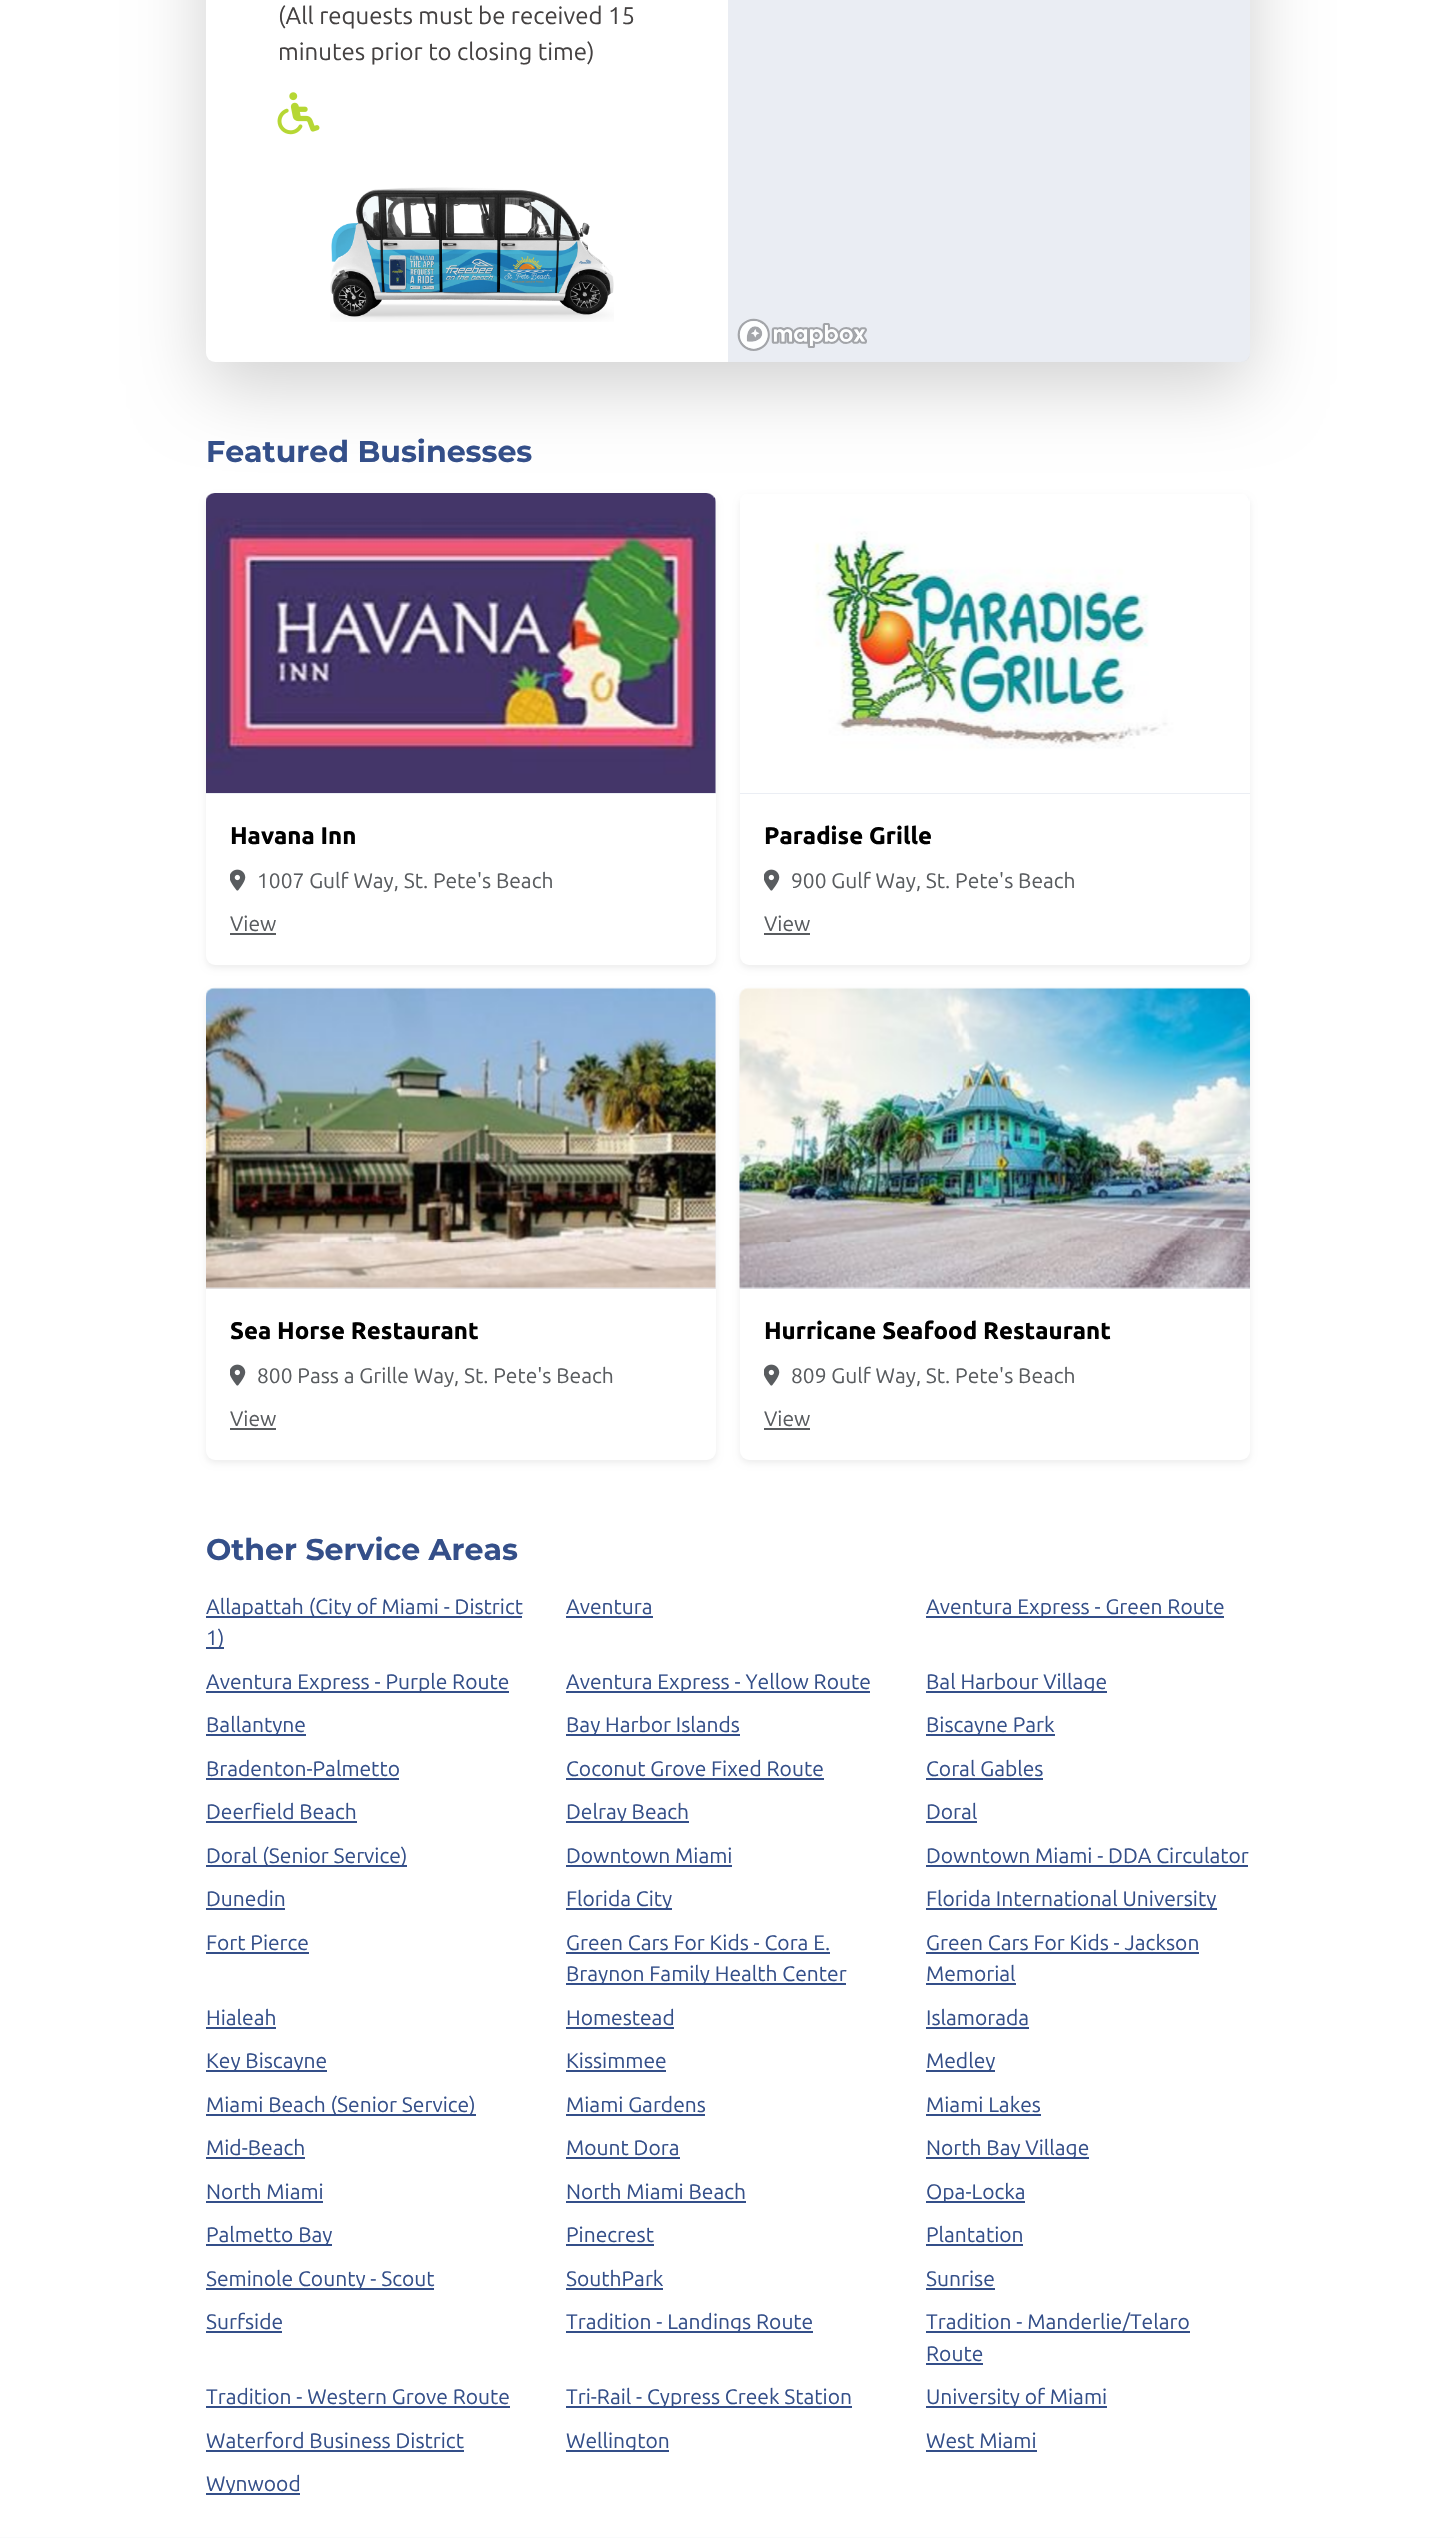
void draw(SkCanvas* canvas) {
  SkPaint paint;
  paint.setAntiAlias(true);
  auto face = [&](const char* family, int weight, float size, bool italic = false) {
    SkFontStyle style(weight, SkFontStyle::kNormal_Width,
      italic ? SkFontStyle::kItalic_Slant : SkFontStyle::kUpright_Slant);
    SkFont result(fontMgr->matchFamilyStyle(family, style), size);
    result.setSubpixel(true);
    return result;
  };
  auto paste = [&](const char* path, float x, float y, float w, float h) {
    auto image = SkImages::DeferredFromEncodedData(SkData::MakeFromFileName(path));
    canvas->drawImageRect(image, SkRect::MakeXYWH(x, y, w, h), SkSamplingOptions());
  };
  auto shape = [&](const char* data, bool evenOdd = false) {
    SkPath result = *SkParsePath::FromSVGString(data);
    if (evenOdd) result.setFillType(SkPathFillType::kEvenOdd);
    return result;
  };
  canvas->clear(0xffffffff);
  paint.setColor(0x2e000000);
  paint.setMaskFilter(SkMaskFilter::MakeBlur(kNormal_SkBlurStyle, 36));
  canvas->drawRoundRect(SkRect::MakeXYWH(206, -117, 1044, 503), 9, 9, paint);
  paint.setMaskFilter(nullptr);
  paint.setColor(0xffffffff);
  canvas->drawRoundRect(SkRect::MakeXYWH(206, -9, 1044, 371), 9, 9, paint);
  paste("img/1.png", 277, 92, 43, 43);
  paste("img/2.png", 330, 187, 284, 135);
  paint.setColor(0x1a344f89);
  canvas->drawPath(shape("M728-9H1241C1246-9 1250-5 1250 0V353C1250 358 1246 362 1241 362H728Z"), paint);
  paste("img/3.png", 737, 318, 130, 33);
  paint.setColor(0x12000000);
  paint.setMaskFilter(SkMaskFilter::MakeBlur(kNormal_SkBlurStyle, 3));
  canvas->drawRoundRect(SkRect::MakeXYWH(206, 497, 510, 471), 9, 9, paint);
  paint.setMaskFilter(nullptr);
  paint.setColor(0xffffffff);
  canvas->drawRoundRect(SkRect::MakeXYWH(206, 494, 510, 471), 9, 9, paint);
  paint.setColor(0xffebeef4);
  canvas->drawPath(shape("M215 494H707C712 494 716 498 716 503V794H206V503C206 498 210 494 215 494Z"), paint);
  paste("img/4.png", 206, 493, 510, 300);
  paste("img/5.png", 230, 869, 16, 22);
  paint.setColor(0xff595c5f);
  canvas->drawRect(SkRect::MakeXYWH(230, 933, 46, 2), paint);
  paint.setColor(0x12000000);
  paint.setMaskFilter(SkMaskFilter::MakeBlur(kNormal_SkBlurStyle, 3));
  canvas->drawRoundRect(SkRect::MakeXYWH(740, 497, 510, 471), 9, 9, paint);
  paint.setMaskFilter(nullptr);
  paint.setColor(0xffffffff);
  canvas->drawRoundRect(SkRect::MakeXYWH(740, 494, 510, 471), 9, 9, paint);
  paint.setColor(0xffebeef4);
  canvas->drawPath(shape("M749 494H1241C1246 494 1250 498 1250 503V794H740V503C740 498 744 494 749 494Z"), paint);
  paste("img/6.png", 740, 494, 510, 299);
  paste("img/5.png", 764, 869, 16, 22);
  paint.setColor(0xff595c5f);
  canvas->drawRect(SkRect::MakeXYWH(764, 933, 46, 2), paint);
  paint.setColor(0x12000000);
  paint.setMaskFilter(SkMaskFilter::MakeBlur(kNormal_SkBlurStyle, 3));
  canvas->drawRoundRect(SkRect::MakeXYWH(206, 992, 510, 471), 9, 9, paint);
  paint.setMaskFilter(nullptr);
  paint.setColor(0xffffffff);
  canvas->drawRoundRect(SkRect::MakeXYWH(206, 989, 510, 471), 9, 9, paint);
  paint.setColor(0xffebeef4);
  canvas->drawPath(shape("M215 989H707C712 989 716 993 716 998V1289H206V998C206 993 210 989 215 989Z"), paint);
  paste("img/7.png", 206, 987, 510, 302);
  paste("img/5.png", 230, 1364, 16, 22);
  paint.setColor(0xff595c5f);
  canvas->drawRect(SkRect::MakeXYWH(230, 1428, 46, 2), paint);
  paint.setColor(0x12000000);
  paint.setMaskFilter(SkMaskFilter::MakeBlur(kNormal_SkBlurStyle, 3));
  canvas->drawRoundRect(SkRect::MakeXYWH(740, 992, 510, 471), 9, 9, paint);
  paint.setMaskFilter(nullptr);
  paint.setColor(0xffffffff);
  canvas->drawRoundRect(SkRect::MakeXYWH(740, 989, 510, 471), 9, 9, paint);
  paint.setColor(0xffebeef4);
  canvas->drawPath(shape("M749 989H1241C1246 989 1250 993 1250 998V1289H740V998C740 993 744 989 749 989Z"), paint);
  paste("img/8.png", 739, 987, 511, 302);
  paste("img/5.png", 764, 1364, 16, 22);
  {
    const struct { float x, y, w, h; SkColor color; } items[] = {
      {764, 1428, 46, 2, 0xff595c5f},
      {206, 1616, 316, 2, 0xff344f89},
      {206, 1647, 18, 2, 0xff344f89},
      {566, 1616, 87, 2, 0xff344f89},
      {926, 1616, 298, 2, 0xff344f89},
      {206, 1691, 303, 2, 0xff344f89},
      {566, 1691, 304, 2, 0xff344f89},
      {926, 1691, 181, 2, 0xff344f89},
      {206, 1734, 100, 2, 0xff344f89},
      {566, 1734, 174, 2, 0xff344f89},
      {926, 1734, 129, 2, 0xff344f89},
      {206, 1778, 193, 2, 0xff344f89},
      {566, 1778, 258, 2, 0xff344f89},
      {926, 1778, 117, 2, 0xff344f89},
      {206, 1821, 151, 2, 0xff344f89},
      {566, 1821, 123, 2, 0xff344f89},
      {926, 1821, 51, 2, 0xff344f89},
      {206, 1865, 201, 2, 0xff344f89},
      {566, 1865, 166, 2, 0xff344f89},
      {926, 1865, 322, 2, 0xff344f89},
      {206, 1908, 79, 2, 0xff344f89},
      {566, 1908, 106, 2, 0xff344f89},
      {926, 1908, 291, 2, 0xff344f89},
      {206, 1952, 103, 2, 0xff344f89},
      {566, 1952, 264, 2, 0xff344f89},
      {566, 1983, 280, 2, 0xff344f89},
      {926, 1952, 273, 2, 0xff344f89},
      {926, 1983, 90, 2, 0xff344f89},
      {206, 2027, 70, 2, 0xff344f89},
      {566, 2027, 108, 2, 0xff344f89},
      {926, 2027, 103, 2, 0xff344f89},
      {206, 2070, 121, 2, 0xff344f89},
      {566, 2070, 100, 2, 0xff344f89},
      {926, 2070, 69, 2, 0xff344f89},
      {206, 2114, 270, 2, 0xff344f89},
      {566, 2114, 139, 2, 0xff344f89},
      {926, 2114, 115, 2, 0xff344f89},
      {206, 2157, 99, 2, 0xff344f89},
      {566, 2157, 114, 2, 0xff344f89},
      {926, 2157, 163, 2, 0xff344f89},
      {206, 2201, 117, 2, 0xff344f89},
      {566, 2201, 180, 2, 0xff344f89},
      {926, 2201, 99, 2, 0xff344f89},
      {206, 2244, 126, 2, 0xff344f89},
      {566, 2244, 88, 2, 0xff344f89},
      {926, 2244, 97, 2, 0xff344f89},
      {206, 2288, 228, 2, 0xff344f89},
      {566, 2288, 97, 2, 0xff344f89},
      {926, 2288, 69, 2, 0xff344f89},
      {206, 2331, 76, 2, 0xff344f89},
      {566, 2331, 247, 2, 0xff344f89},
      {926, 2331, 264, 2, 0xff344f89},
      {926, 2363, 57, 2, 0xff344f89},
      {206, 2406, 304, 2, 0xff344f89},
      {566, 2406, 286, 2, 0xff344f89},
      {926, 2406, 181, 2, 0xff344f89},
      {206, 2450, 258, 2, 0xff344f89},
      {566, 2450, 103, 2, 0xff344f89},
      {926, 2450, 111, 2, 0xff344f89},
      {206, 2493, 94, 2, 0xff344f89},
      {0, 2537, 1454, 1, 0xfffafbfc},
    };
    for (auto [x, y, w, h, color] : items) {
      paint.setColor(color);
      canvas->drawRect(SkRect::MakeXYWH(x, y, w, h), paint);
    }
  }
  auto f0 = face("Ubuntu", 400, 24);
  paint.setColor(0xff444141);
  canvas->drawString("(All requests must be received 15", 278, 24, f0, paint);
  canvas->drawString("minutes prior to closing time)", 278, 60, f0, paint);
  auto f1 = face("Montserrat", 700, 30);
  paint.setColor(0xff344f89);
  canvas->drawString("Featured Businesses", 206, 462, f1, paint);
  auto f2 = face("Ubuntu", 700, 24);
  paint.setColor(0xff000000);
  canvas->drawString("Havana Inn", 230, 844, f2, paint);
  auto f3 = face("Ubuntu", 400, 21);
  paint.setColor(0xff595c5f);
  canvas->drawString("1007 Gulf Way, St. Pete's Beach", 257, 888, f3, paint);
  canvas->drawString("View", 230, 931, f3, paint);
  paint.setColor(0xff000000);
  canvas->drawString("Paradise Grille", 764, 844, f2, paint);
  paint.setColor(0xff595c5f);
  canvas->drawString("900 Gulf Way, St. Pete's Beach", 791, 888, f3, paint);
  canvas->drawString("View", 764, 931, f3, paint);
  paint.setColor(0xff000000);
  canvas->drawString("Sea Horse Restaurant", 230, 1339, f2, paint);
  paint.setColor(0xff595c5f);
  canvas->drawString("800 Pass a Grille Way, St. Pete's Beach", 257, 1383, f3, paint);
  canvas->drawString("View", 230, 1426, f3, paint);
  paint.setColor(0xff000000);
  canvas->drawString("Hurricane Seafood Restaurant", 764, 1339, f2, paint);
  paint.setColor(0xff595c5f);
  canvas->drawString("809 Gulf Way, St. Pete's Beach", 791, 1383, f3, paint);
  canvas->drawString("View", 764, 1426, f3, paint);
  paint.setColor(0xff344f89);
  canvas->drawString("Other Service Areas", 206, 1560, f1, paint);
  {
    const struct { const char* s; float x, y; } items[] = {
      {"Allapattah (City of Miami - District", 206, 1614},
      {"1)", 206, 1645},
      {"Aventura", 566, 1614},
      {"Aventura Express - Green Route", 926, 1614},
      {"Aventura Express - Purple Route", 206, 1689},
      {"Aventura Express - Yellow Route", 566, 1689},
      {"Bal Harbour Village", 926, 1689},
      {"Ballantyne", 206, 1732},
      {"Bay Harbor Islands", 566, 1732},
      {"Biscayne Park", 926, 1732},
      {"Bradenton-Palmetto", 206, 1776},
      {"Coconut Grove Fixed Route", 566, 1776},
      {"Coral Gables", 926, 1776},
      {"Deerfield Beach", 206, 1819},
      {"Delray Beach", 566, 1819},
      {"Doral", 926, 1819},
      {"Doral (Senior Service)", 206, 1863},
      {"Downtown Miami", 566, 1863},
      {"Downtown Miami - DDA Circulator", 926, 1863},
      {"Dunedin", 206, 1906},
      {"Florida City", 566, 1906},
      {"Florida International University", 926, 1906},
      {"Fort Pierce", 206, 1950},
      {"Green Cars For Kids - Cora E.", 566, 1950},
      {"Braynon Family Health Center", 566, 1981},
      {"Green Cars For Kids - Jackson", 926, 1950},
      {"Memorial", 926, 1981},
      {"Hialeah", 206, 2025},
      {"Homestead", 566, 2025},
      {"Islamorada", 926, 2025},
      {"Key Biscayne", 206, 2068},
      {"Kissimmee", 566, 2068},
      {"Medley", 926, 2068},
      {"Miami Beach (Senior Service)", 206, 2112},
      {"Miami Gardens", 566, 2112},
      {"Miami Lakes", 926, 2112},
      {"Mid-Beach", 206, 2155},
      {"Mount Dora", 566, 2155},
      {"North Bay Village", 926, 2155},
      {"North Miami", 206, 2199},
      {"North Miami Beach", 566, 2199},
      {"Opa-Locka", 926, 2199},
      {"Palmetto Bay", 206, 2242},
      {"Pinecrest", 566, 2242},
      {"Plantation", 926, 2242},
      {"Seminole County - Scout", 206, 2286},
      {"SouthPark", 566, 2286},
      {"Sunrise", 926, 2286},
      {"Surfside", 206, 2329},
      {"Tradition - Landings Route", 566, 2329},
      {"Tradition - Manderlie/Telaro", 926, 2329},
      {"Route", 926, 2361},
      {"Tradition - Western Grove Route", 206, 2404},
      {"Tri-Rail - Cypress Creek Station", 566, 2404},
      {"University of Miami", 926, 2404},
      {"Waterford Business District", 206, 2448},
      {"Wellington", 566, 2448},
      {"West Miami", 926, 2448},
      {"Wynwood", 206, 2491},
    };
    for (auto [s, x, y] : items) {
      canvas->drawString(s, x, y, f3, paint);
    }
  }
}
